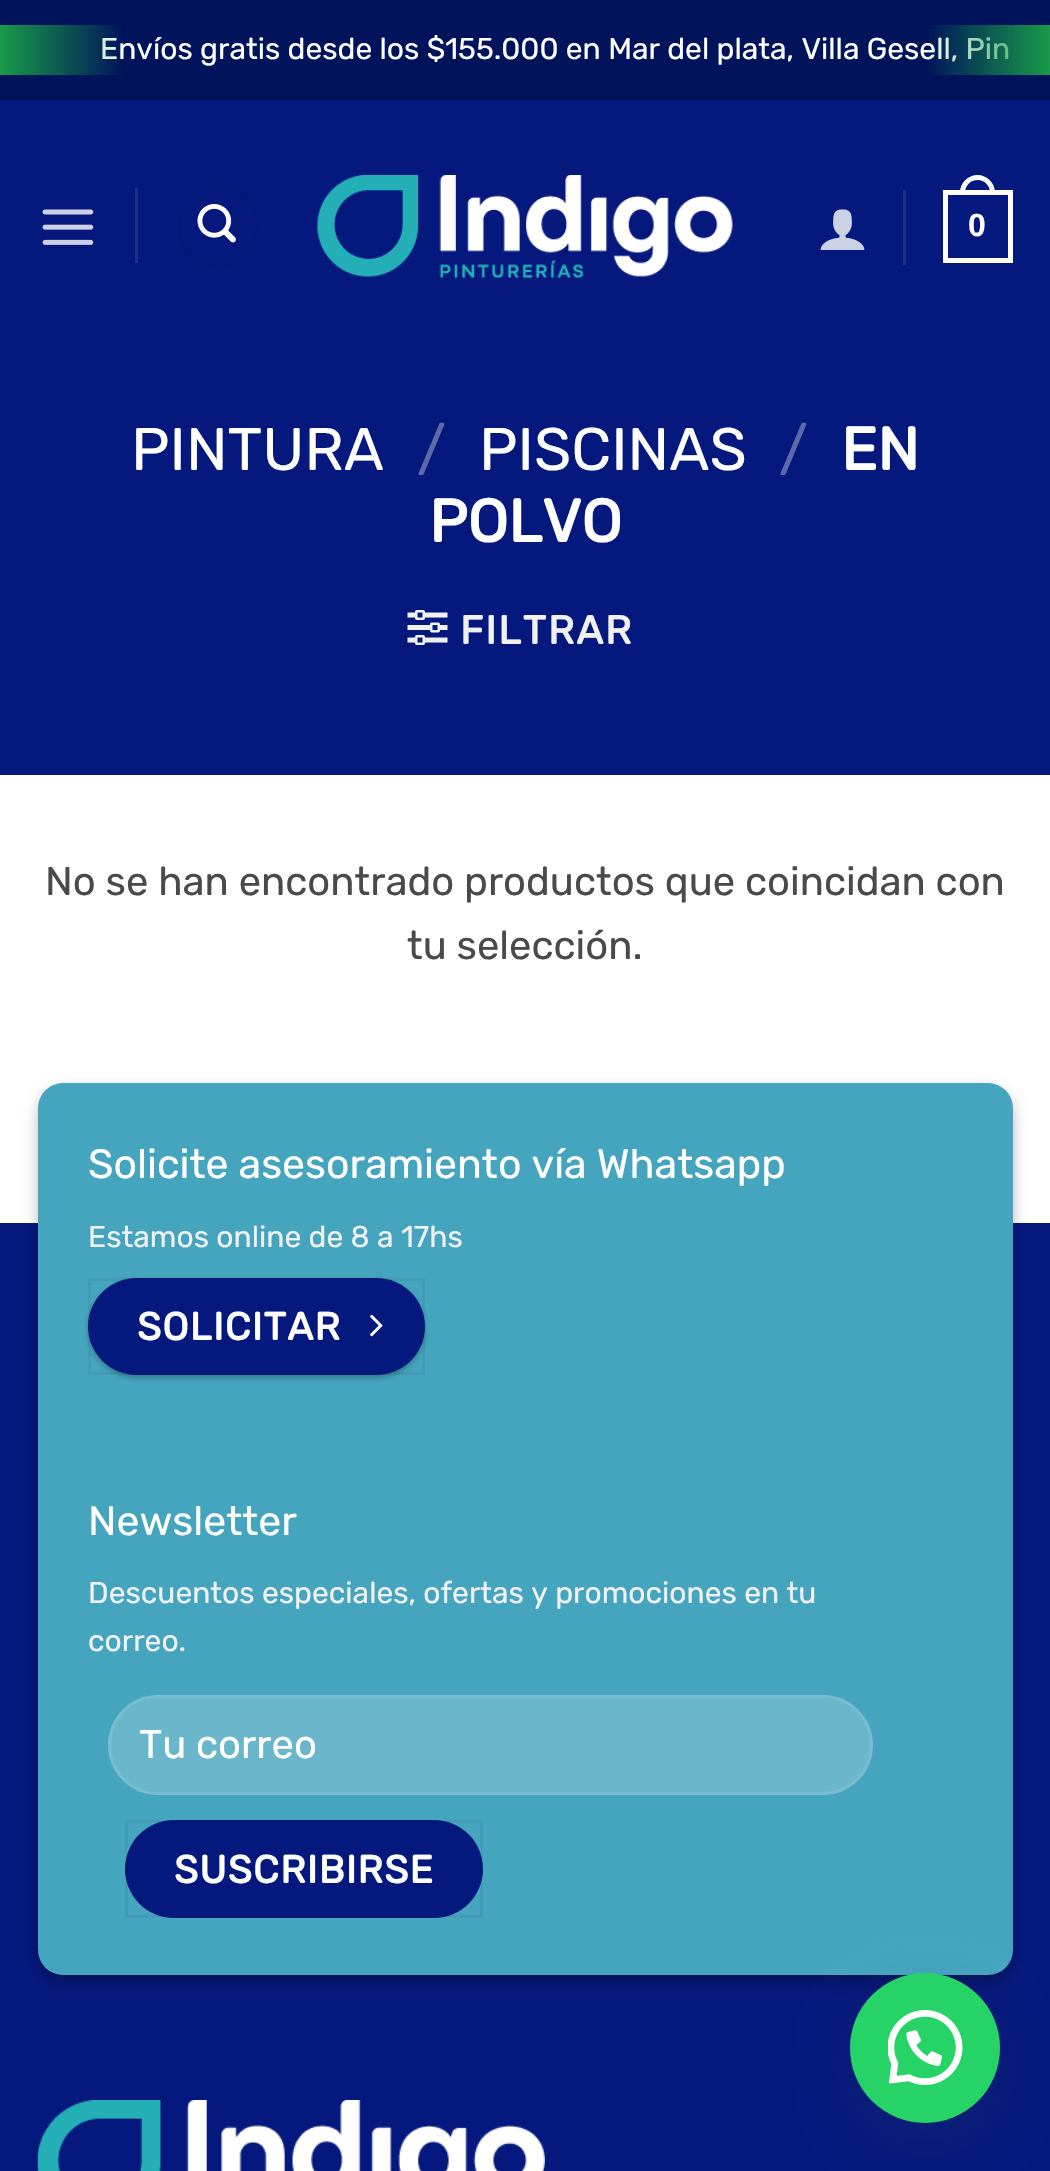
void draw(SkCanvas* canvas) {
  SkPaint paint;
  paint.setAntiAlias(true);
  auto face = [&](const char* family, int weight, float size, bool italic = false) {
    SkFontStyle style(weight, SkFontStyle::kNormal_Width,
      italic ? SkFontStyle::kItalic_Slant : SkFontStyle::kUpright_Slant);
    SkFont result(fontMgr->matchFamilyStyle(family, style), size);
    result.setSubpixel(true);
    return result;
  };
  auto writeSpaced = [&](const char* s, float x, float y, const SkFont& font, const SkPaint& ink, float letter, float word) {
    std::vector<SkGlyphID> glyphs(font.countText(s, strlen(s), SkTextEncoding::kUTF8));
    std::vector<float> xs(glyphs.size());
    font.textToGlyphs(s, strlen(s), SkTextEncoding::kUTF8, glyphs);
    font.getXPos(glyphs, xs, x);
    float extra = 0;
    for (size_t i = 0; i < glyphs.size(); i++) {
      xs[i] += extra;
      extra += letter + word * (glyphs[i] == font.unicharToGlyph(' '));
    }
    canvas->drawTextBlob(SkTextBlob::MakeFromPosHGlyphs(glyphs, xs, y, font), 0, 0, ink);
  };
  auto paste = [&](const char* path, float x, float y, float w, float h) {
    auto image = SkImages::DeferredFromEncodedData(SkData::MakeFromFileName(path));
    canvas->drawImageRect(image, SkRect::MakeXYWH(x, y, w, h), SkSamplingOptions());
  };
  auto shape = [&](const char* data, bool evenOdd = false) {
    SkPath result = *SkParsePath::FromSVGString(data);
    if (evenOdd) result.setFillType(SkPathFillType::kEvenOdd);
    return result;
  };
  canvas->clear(0xffffffff);
  paint.setColor(0xff00135b);
  canvas->drawRect(SkRect::MakeXYWH(0, 0, 1050, 100), paint);
  paint.setColor(0xff05187d);
  canvas->drawRect(SkRect::MakeXYWH(0, 100, 1050, 675), paint);
  paste("img/1.png", 42, 209, 52, 36);
  paint.setColor(0xff1e2f8a);
  canvas->drawRect(SkRect::MakeXYWH(135, 188, 3, 75), paint);
  paint.setStroke(true);
  paint.setStrokeWidth(3);
  paint.setColor(0xff051777);
  canvas->drawRoundRect(SkRect::MakeXYWH(179.5f, 186.5f, 77, 80), 38.5f, 38.5f, paint);
  paste("img/2.png", 197, 204, 39, 39);
  paste("img/3.png", 317, 175, 416, 103);
  paste("img/4.png", 820, 209, 45, 41);
  paint.setStroke(false);
  paint.setColor(0xff1e2f8a);
  canvas->drawRect(SkRect::MakeXYWH(903, 190, 3, 75), paint);
  paint.setStroke(true);
  paint.setStrokeWidth(5);
  paint.setColor(0xffffffff);
  canvas->drawRect(SkRect::MakeXYWH(945.5f, 192.5f, 65, 68), paint);
  paint.setStroke(false);
  canvas->drawPath(shape("M977.5 175C987 175 995 183 995 192.5V195H960V192.5C960 183 968 175 977.5 175ZM977.5 180C984.5 180 990 185.5 990 192.5V195H965V192.5C965 185.5 970.5 180 977.5 180Z", true), paint);
  paste("img/5.png", 407, 610, 41, 35);
  paint.setColor(0xff05187d);
  canvas->drawRect(SkRect::MakeXYWH(0, 1223, 1050, 948), paint);
  paint.setColor(0x3b000000);
  paint.setMaskFilter(SkMaskFilter::MakeBlur(kNormal_SkBlurStyle, 7.5f));
  canvas->drawRoundRect(SkRect::MakeXYWH(38, 1090, 975, 893), 25, 25, paint);
  paint.setMaskFilter(nullptr);
  paint.setColor(0x29000000);
  paint.setMaskFilter(SkMaskFilter::MakeBlur(kNormal_SkBlurStyle, 7.5f));
  canvas->drawRoundRect(SkRect::MakeXYWH(48, 1100, 955, 873), 15, 15, paint);
  paint.setMaskFilter(nullptr);
  paint.setColor(0xff45a5bf);
  canvas->drawRoundRect(SkRect::MakeXYWH(38, 1083, 975, 892), 25, 25, paint);
  paint.setColor(0x3d000000);
  paint.setMaskFilter(SkMaskFilter::MakeBlur(kNormal_SkBlurStyle, 2.5f));
  canvas->drawRoundRect(SkRect::MakeXYWH(88, 1280, 337, 98), 49, 49, paint);
  paint.setMaskFilter(nullptr);
  paint.setColor(0x1f000000);
  paint.setMaskFilter(SkMaskFilter::MakeBlur(kNormal_SkBlurStyle, 4));
  canvas->drawRoundRect(SkRect::MakeXYWH(93, 1285, 327, 88), 44, 44, paint);
  paint.setMaskFilter(nullptr);
  paint.setColor(0xff05187d);
  canvas->drawRoundRect(SkRect::MakeXYWH(88, 1278, 337, 97), 48.5f, 48.5f, paint);
  paint.setStroke(true);
  paint.setStrokeWidth(3);
  paint.setColor(0x0d000000);
  canvas->drawRect(SkRect::MakeXYWH(89.5f, 1279.5f, 334, 94), paint);
  paste("img/6.png", 370, 1314, 13, 23);
  paint.setStroke(false);
  paint.setColor(0xff6ab7cc);
  canvas->drawRoundRect(SkRect::MakeXYWH(108, 1695, 765, 100), 50, 50, paint);
  paint.setStroke(true);
  paint.setColor(0x17ffffff);
  canvas->drawRoundRect(SkRect::MakeXYWH(109.5f, 1696.5f, 762, 97), 48.5f, 48.5f, paint);
  paint.setStroke(false);
  paint.setColor(0xff05187d);
  canvas->drawRoundRect(SkRect::MakeXYWH(125, 1820, 358, 98), 49, 49, paint);
  paint.setStroke(true);
  paint.setColor(0x0d000000);
  canvas->drawRect(SkRect::MakeXYWH(126.5f, 1821.5f, 355, 95), paint);
  paste("img/7.png", 37, 2100, 508, 71);
  paint.setStroke(false);
  paint.setColor(0x4d2d3e4f);
  paint.setMaskFilter(SkMaskFilter::MakeBlur(kNormal_SkBlurStyle, 31));
  canvas->drawRoundRect(SkRect::MakeXYWH(863, 2005, 125, 125), 62.5f, 62.5f, paint);
  paint.setMaskFilter(nullptr);
  paint.setColor(0xff25d366);
  canvas->drawCircle(925, 2048, 75, paint);
  paste("img/8.png", 888, 2010, 75, 75);
  auto f0 = face("Rubik", 300, 30);
  paint.setColor(0xffffffff);
  canvas->drawString("Envíos gratis desde los $155.000 en Mar del plata, Villa Gesell, Pin", 100, 59, f0, paint);
  {
    const SkColor colors[] = {0x00199a49, 0xff199a49};
    const float stops[] = {0, 1};
    const SkPoint ends[] = {{925, 50}, {1050, 50}};
    paint.setShader(SkGradientShader::MakeLinear(ends, colors, stops, 2, SkTileMode::kClamp));
    paint.setAlpha(255);
  }
  canvas->drawRect(SkRect::MakeXYWH(928, 25, 122, 50), paint);
  {
    const SkColor colors[] = {0x00199a49, 0xff199a49};
    const float stops[] = {0, 1};
    const SkPoint ends[] = {{125, 50}, {0, 50}};
    paint.setShader(SkGradientShader::MakeLinear(ends, colors, stops, 2, SkTileMode::kClamp));
    paint.setAlpha(255);
  }
  canvas->drawRect(SkRect::MakeXYWH(0, 25, 122, 50), paint);
  auto f1 = face("Liberation Sans", 700, 32);
  paint.setShader(nullptr);
  paint.setColor(0xffffffff);
  canvas->drawString("0", 968, 236, f1, paint);
  auto f2 = face("Rubik", 300, 60);
  canvas->drawString("PINTURA", 131, 470, f2, paint);
  paint.setColor(0xff5d69ab);
  canvas->drawString("/", 417, 470, f2, paint);
  paint.setColor(0xffffffff);
  canvas->drawString("PISCINAS", 479, 470, f2, paint);
  paint.setColor(0xff5d69ab);
  canvas->drawString("/", 779, 470, f2, paint);
  auto f3 = face("Rubik", 700, 60);
  paint.setColor(0xffffffff);
  canvas->drawString("EN", 841, 470, f3, paint);
  canvas->drawString("POLVO", 429, 542, f3, paint);
  auto f4 = face("Rubik", 700, 40);
  paint.setColor(0xfff1f1f1);
  writeSpaced("FILTRAR", 460, 644, f4, paint, 2, 0);
  auto f5 = face("Rubik", 300, 40);
  paint.setColor(0xff4a4a4a);
  canvas->drawString("No se han encontrado productos que coincidan con", 45, 895, f5, paint);
  canvas->drawString("tu selección.", 407, 959, f5, paint);
  auto f6 = face("Rubik", 300, 41);
  paint.setColor(0xffffffff);
  canvas->drawString("Solicite asesoramiento vía Whatsapp", 88, 1178, f6, paint);
  paint.setColor(0xfff1f1f1);
  canvas->drawString("Estamos online de 8 a 17hs", 88, 1247, f0, paint);
  auto f7 = face("Rubik", 700, 38.75f);
  paint.setColor(0xffffffff);
  writeSpaced("SOLICITAR", 137, 1340, f7, paint, 1.25f, 0);
  canvas->drawString("Newsletter", 88, 1535, f6, paint);
  paint.setColor(0xfff1f1f1);
  canvas->drawString("Descuentos especiales, ofertas y promociones en tu", 88, 1603, f0, paint);
  canvas->drawString("correo.", 88, 1651, f0, paint);
  canvas->save();
  canvas->clipRect(SkRect::MakeXYWH(140, 1720, 700, 48));
  paint.setColor(0xffffffff);
  canvas->drawString("Tu correo", 139, 1758, f5, paint);
  canvas->restore();
  writeSpaced("SUSCRIBIRSE", 174, 1883, f7, paint, 1.25f, 0);
}
